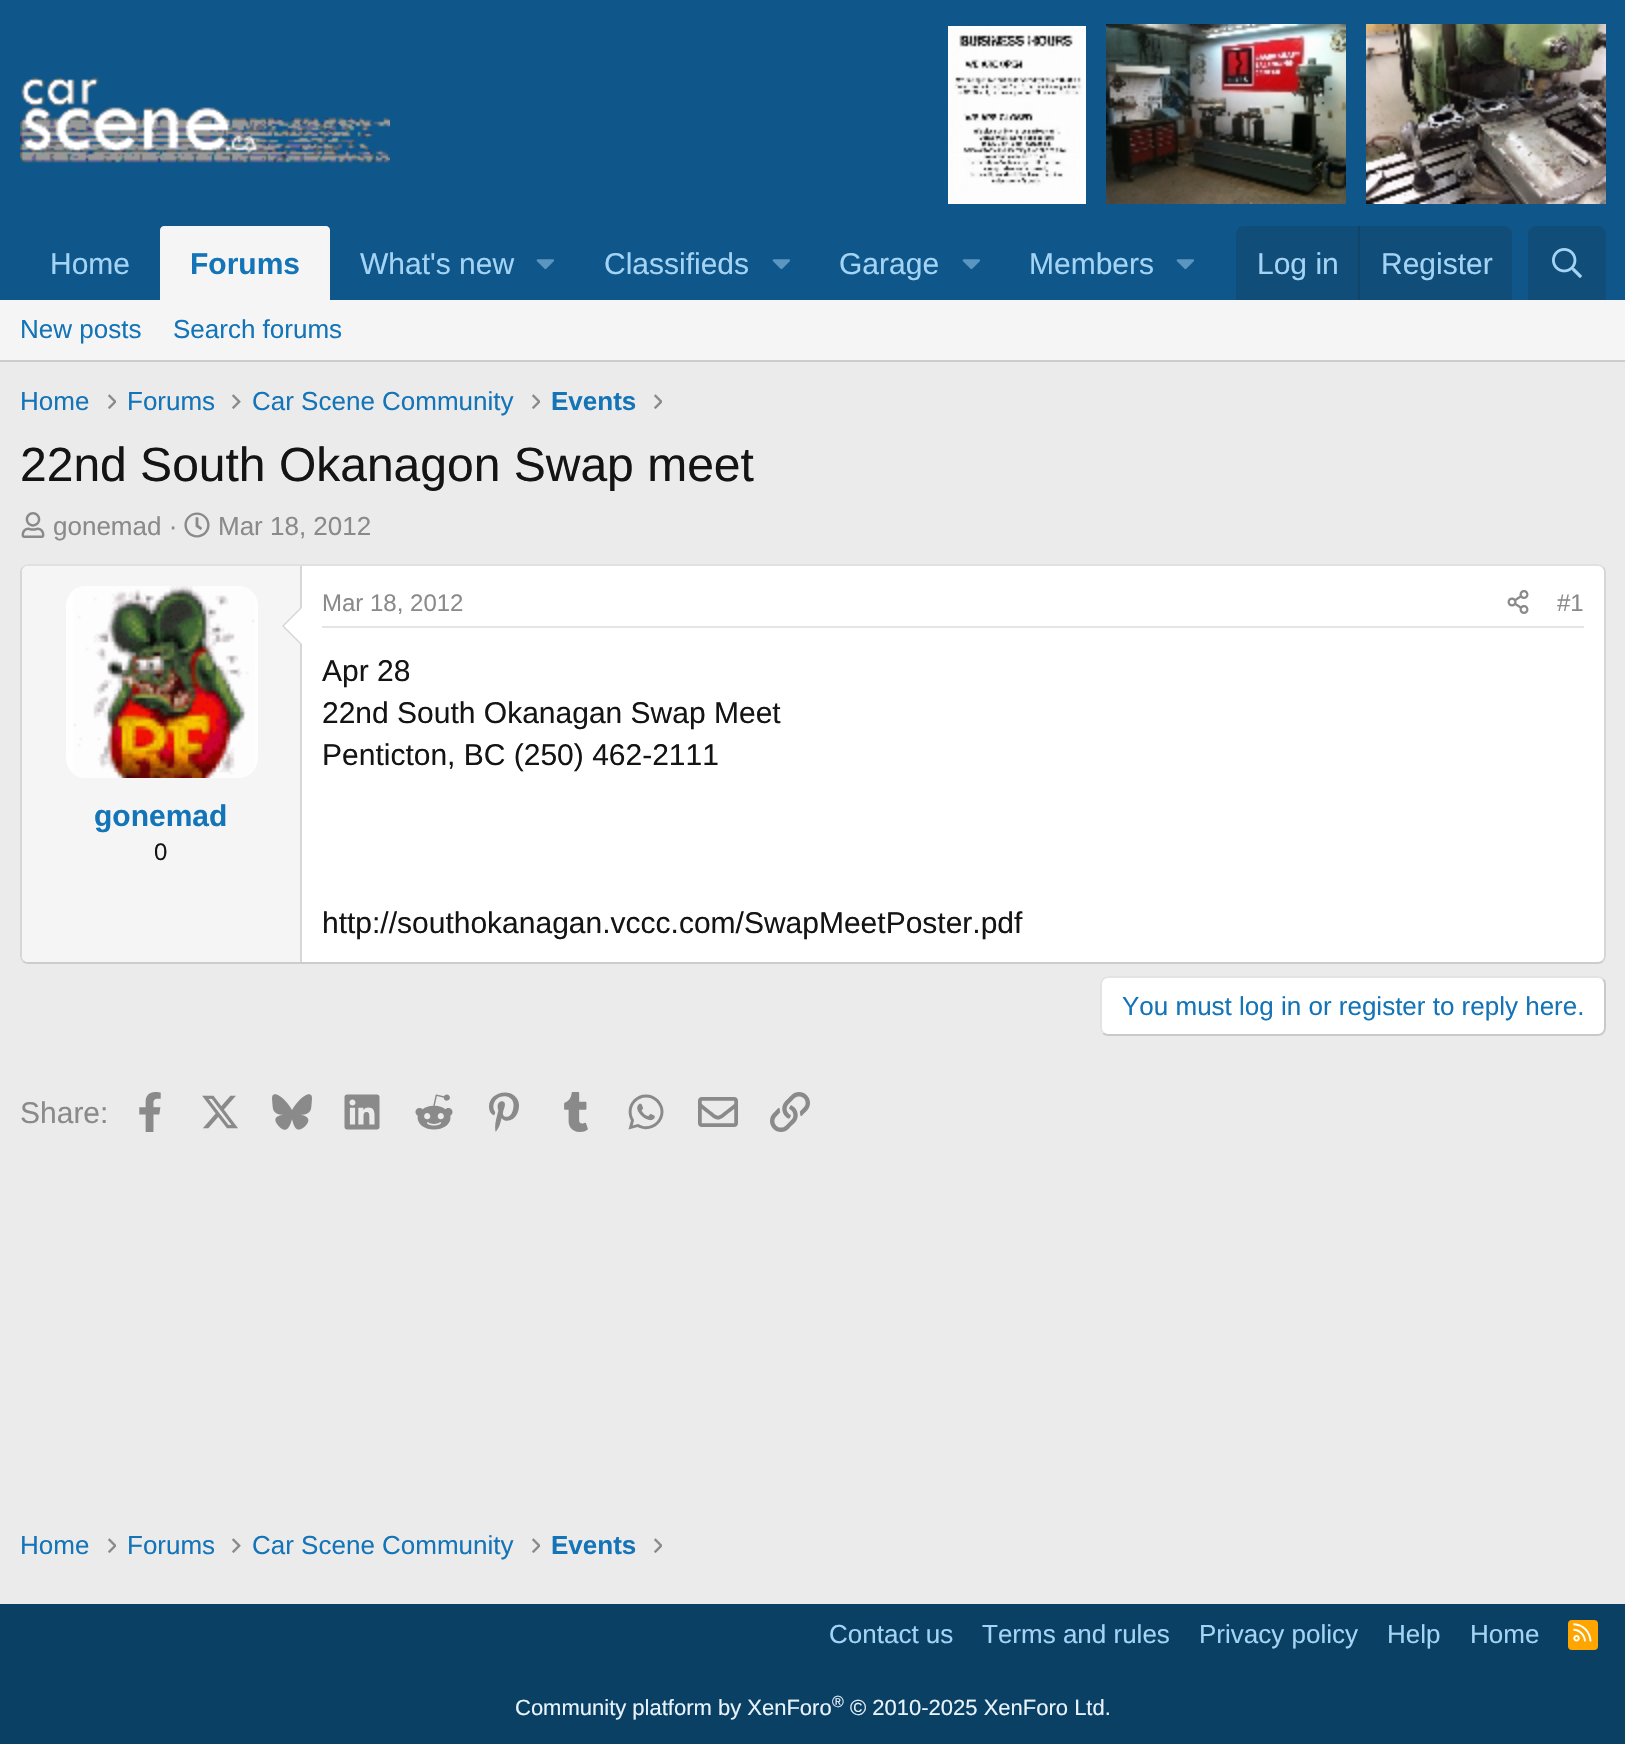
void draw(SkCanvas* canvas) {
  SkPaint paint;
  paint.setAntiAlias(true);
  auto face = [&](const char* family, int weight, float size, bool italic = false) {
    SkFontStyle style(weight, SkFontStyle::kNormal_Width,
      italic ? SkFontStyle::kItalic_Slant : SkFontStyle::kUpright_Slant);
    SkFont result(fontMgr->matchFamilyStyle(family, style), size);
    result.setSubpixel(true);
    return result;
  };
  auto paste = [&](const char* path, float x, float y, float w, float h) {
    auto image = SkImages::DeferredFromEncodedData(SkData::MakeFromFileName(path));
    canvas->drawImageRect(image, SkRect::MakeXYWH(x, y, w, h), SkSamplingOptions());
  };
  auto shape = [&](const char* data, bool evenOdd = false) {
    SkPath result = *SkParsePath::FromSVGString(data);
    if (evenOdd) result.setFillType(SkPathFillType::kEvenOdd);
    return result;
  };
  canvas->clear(0xffebebeb);
  paint.setColor(0xff0f578a);
  canvas->drawRect(SkRect::MakeXYWH(0, 0, 1625, 300), paint);
  paste("img/1.png", 20, 77, 370, 86);
  paste("img/2.png", 948, 26, 138, 178);
  paste("img/3.png", 1106, 24, 240, 180);
  paste("img/4.png", 1366, 24, 240, 180);
  paint.setColor(0xfff5f5f5);
  canvas->drawPath(shape("M164 226H326C328 226 330 228 330 230V300H160V230C160 228 162 226 164 226Z"), paint);
  paste("img/5.png", 536, 259, 18, 11);
  paste("img/5.png", 772, 259, 18, 11);
  paste("img/5.png", 962, 259, 18, 11);
  paste("img/5.png", 1176, 259, 18, 11);
  paint.setColor(0xff104d78);
  canvas->drawPath(shape("M1244 226H1504C1508.5 226 1512 229.5 1512 234V300H1236V234C1236 229.5 1239.5 226 1244 226Z"), paint);
  paint.setColor(0xff114469);
  canvas->drawRect(SkRect::MakeXYWH(1358, 226, 2, 74), paint);
  paint.setColor(0xff104d78);
  canvas->drawPath(shape("M1536 226H1598C1602.5 226 1606 229.5 1606 234V300H1528V234C1528 229.5 1531.5 226 1536 226Z"), paint);
  paste("img/6.png", 1552, 248, 30, 30);
  paint.setColor(0xfff5f5f5);
  canvas->drawRect(SkRect::MakeXYWH(0, 300, 1625, 60), paint);
  paint.setColor(0xffcccccc);
  canvas->drawRect(SkRect::MakeXYWH(0, 360, 1625, 2), paint);
  paste("img/7.png", 108, 394, 8, 15);
  paste("img/8.png", 232, 394, 9, 15);
  paste("img/7.png", 532, 394, 8, 15);
  paste("img/7.png", 654, 394, 8, 15);
  paste("img/9.png", 21, 512, 24, 26);
  paste("img/10.png", 184, 512, 26, 26);
  paint.setColor(0xffffffff);
  canvas->drawRoundRect(SkRect::MakeXYWH(20, 564, 1586, 400), 8, 8, paint);
  paint.setStroke(true);
  paint.setStrokeWidth(2);
  paint.setColor(0xffe0e0e0);
  canvas->drawPath(shape("M23 567C24.5 565.5 26 565 28 565H1598C1600 565 1601.5 565.5 1603 567"), paint);
  paint.setColor(0xffd6d6d6);
  canvas->drawPath(shape("M1603 567C1604.5 568.5 1605 570 1605 572V956C1605 958 1604.5 959.5 1603 961"), paint);
  paint.setColor(0xffcccccc);
  canvas->drawPath(shape("M1603 961C1601.5 962.5 1600 963 1598 963H28C26 963 24.5 962.5 23 961"), paint);
  paint.setColor(0xffd6d6d6);
  canvas->drawPath(shape("M23 961C21.5 959.5 21 958 21 956V572C21 570 21.5 568.5 23 567"), paint);
  paint.setStroke(false);
  paint.setColor(0xfff5f5f5);
  canvas->drawPath(shape("M28 566H302V962H28C24.5 962 22 959.5 22 956V572C22 568.5 24.5 566 28 566Z"), paint);
  paint.setColor(0xffd6d6d6);
  canvas->drawRect(SkRect::MakeXYWH(300, 566, 2, 396), paint);
  paint.setColor(0xffffffff);
  canvas->drawRoundRect(SkRect::MakeXYWH(66, 586, 192, 192), 20, 20, paint);
  paste("img/11.png", 73, 586, 182, 192);
  paint.setColor(0xffd6d6d6);
  canvas->drawPath(shape("M302 606V646L282 626Z"), paint);
  paint.setColor(0xffffffff);
  canvas->drawPath(shape("M302 608V644L284 626Z"), paint);
  paint.setColor(0xffe5e5e5);
  canvas->drawRect(SkRect::MakeXYWH(322, 626, 1262, 2), paint);
  paste("img/12.png", 1507, 590, 22, 24);
  paint.setColor(0xffffffff);
  canvas->drawRoundRect(SkRect::MakeXYWH(1100, 976, 506, 60), 8, 8, paint);
  paint.setStroke(true);
  paint.setColor(0xffc9c9c9);
  canvas->drawPath(shape("M1603 979C1604.5 980.5 1605 982 1605 984V1028C1605 1030 1604.5 1031.5 1603 1033C1601.5 1034.5 1600 1035 1598 1035H1108C1106 1035 1104.5 1034.5 1103 1033"), paint);
  paint.setColor(0xffe3e3e3);
  canvas->drawPath(shape("M1103 1033C1101.5 1031.5 1101 1030 1101 1028V984C1101 982 1101.5 980.5 1103 979C1104.5 977.5 1106 977 1108 977H1598C1600 977 1601.5 977.5 1603 979"), paint);
  paste("img/13.png", 139, 1092, 22, 40);
  paste("img/14.png", 202, 1095, 36, 34);
  paste("img/15.png", 272, 1094, 40, 36);
  paste("img/16.png", 344, 1094, 36, 36);
  paste("img/17.png", 415, 1094, 38, 36);
  paste("img/18.png", 489, 1092, 30, 40);
  paste("img/19.png", 564, 1092, 24, 40);
  paste("img/20.png", 628, 1094, 36, 36);
  paste("img/21.png", 698, 1097, 40, 30);
  paste("img/22.png", 770, 1092, 40, 40);
  paste("img/7.png", 108, 1538, 8, 15);
  paste("img/8.png", 232, 1538, 9, 15);
  paste("img/7.png", 532, 1538, 8, 15);
  paste("img/7.png", 654, 1538, 8, 15);
  paint.setStroke(false);
  paint.setColor(0xff0b4065);
  canvas->drawRect(SkRect::MakeXYWH(0, 1604, 1625, 140), paint);
  paint.setColor(0xffffa500);
  canvas->drawRoundRect(SkRect::MakeXYWH(1568, 1620, 30, 30), 4, 4, paint);
  paste("img/23.png", 1573, 1623, 19, 19);
  auto f0 = face("Liberation Sans", 400, 30);
  paint.setColor(0xffa3d4f5);
  canvas->drawString("Home", 50, 274, f0, paint);
  auto f1 = face("Liberation Sans", 700, 30);
  paint.setColor(0xff1474b8);
  canvas->drawString("Forums", 190, 274, f1, paint);
  paint.setColor(0xffa3d4f5);
  {
    const struct { const char* s; float x, y; } items[] = {
      {"What's new", 360, 274},
      {"Classifieds", 604, 274},
      {"Garage", 839, 274},
      {"Members", 1029, 274},
      {"Log in", 1257, 274},
      {"Register", 1381, 274},
    };
    for (auto [s, x, y] : items) {
      canvas->drawString(s, x, y, f0, paint);
    }
  }
  auto f2 = face("Liberation Sans", 400, 26);
  paint.setColor(0xff1474b8);
  {
    const struct { const char* s; float x, y; } items[] = {
      {"New posts", 20, 338},
      {"Search forums", 173, 338},
      {"Home", 20, 410},
      {"Forums", 127, 410},
      {"Car Scene Community", 252, 410},
    };
    for (auto [s, x, y] : items) {
      canvas->drawString(s, x, y, f2, paint);
    }
  }
  auto f3 = face("Liberation Sans", 700, 26);
  canvas->drawString("Events", 551, 410, f3, paint);
  auto f4 = face("Liberation Sans", 400, 48);
  paint.setColor(0xff141414);
  canvas->drawString("22nd South Okanagon Swap meet", 20, 481, f4, paint);
  paint.setColor(0xff8a8a8a);
  canvas->drawString("gonemad ·", 53, 535, f2, paint);
  canvas->drawString("Mar 18, 2012", 218, 535, f2, paint);
  paint.setColor(0xff1474b8);
  canvas->drawString("gonemad", 94, 826, f1, paint);
  auto f5 = face("Liberation Sans", 400, 24);
  paint.setColor(0xff141414);
  canvas->drawString("0", 154, 860, f5, paint);
  paint.setColor(0xff8a8a8a);
  canvas->drawString("Mar 18, 2012", 322, 611, f5, paint);
  canvas->drawString("#1", 1557, 611, f5, paint);
  paint.setColor(0xff141414);
  {
    const struct { const char* s; float x, y; } items[] = {
      {"Apr 28", 322, 681},
      {"22nd South Okanagan Swap Meet", 322, 723},
      {"Penticton, BC (250) 462-2111", 322, 765},
      {"http://southokanagan.vccc.com/SwapMeetPoster.pdf", 322, 933},
    };
    for (auto [s, x, y] : items) {
      canvas->drawString(s, x, y, f0, paint);
    }
  }
  paint.setColor(0xff1474b8);
  canvas->drawString("You must log in or register to reply here.", 1122, 1015, f2, paint);
  paint.setColor(0xff8a8a8a);
  canvas->drawString("Share:", 20, 1123, f0, paint);
  paint.setColor(0xff1474b8);
  {
    const struct { const char* s; float x, y; } items[] = {
      {"Home", 20, 1554},
      {"Forums", 127, 1554},
      {"Car Scene Community", 252, 1554},
    };
    for (auto [s, x, y] : items) {
      canvas->drawString(s, x, y, f2, paint);
    }
  }
  canvas->drawString("Events", 551, 1554, f3, paint);
  paint.setColor(0xffa3d4f5);
  {
    const struct { const char* s; float x, y; } items[] = {
      {"Contact us", 829, 1643},
      {"Terms and rules", 982, 1643},
      {"Privacy policy", 1199, 1643},
      {"Help", 1387, 1643},
      {"Home", 1470, 1643},
    };
    for (auto [s, x, y] : items) {
      canvas->drawString(s, x, y, f2, paint);
    }
  }
  auto f6 = face("Liberation Sans", 400, 22);
  paint.setColor(0xffe8f4fc);
  canvas->drawString("Community platform by XenForo", 515, 1715, f6, paint);
  auto f7 = face("Liberation Sans", 400, 16);
  canvas->drawString("®", 832, 1707, f7, paint);
  canvas->drawString("© 2010-2025 XenForo Ltd.", 850, 1715, f6, paint);
}
